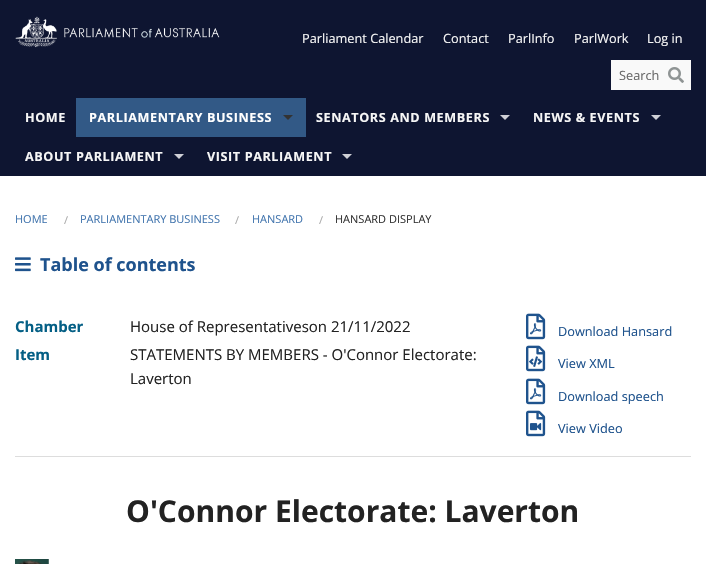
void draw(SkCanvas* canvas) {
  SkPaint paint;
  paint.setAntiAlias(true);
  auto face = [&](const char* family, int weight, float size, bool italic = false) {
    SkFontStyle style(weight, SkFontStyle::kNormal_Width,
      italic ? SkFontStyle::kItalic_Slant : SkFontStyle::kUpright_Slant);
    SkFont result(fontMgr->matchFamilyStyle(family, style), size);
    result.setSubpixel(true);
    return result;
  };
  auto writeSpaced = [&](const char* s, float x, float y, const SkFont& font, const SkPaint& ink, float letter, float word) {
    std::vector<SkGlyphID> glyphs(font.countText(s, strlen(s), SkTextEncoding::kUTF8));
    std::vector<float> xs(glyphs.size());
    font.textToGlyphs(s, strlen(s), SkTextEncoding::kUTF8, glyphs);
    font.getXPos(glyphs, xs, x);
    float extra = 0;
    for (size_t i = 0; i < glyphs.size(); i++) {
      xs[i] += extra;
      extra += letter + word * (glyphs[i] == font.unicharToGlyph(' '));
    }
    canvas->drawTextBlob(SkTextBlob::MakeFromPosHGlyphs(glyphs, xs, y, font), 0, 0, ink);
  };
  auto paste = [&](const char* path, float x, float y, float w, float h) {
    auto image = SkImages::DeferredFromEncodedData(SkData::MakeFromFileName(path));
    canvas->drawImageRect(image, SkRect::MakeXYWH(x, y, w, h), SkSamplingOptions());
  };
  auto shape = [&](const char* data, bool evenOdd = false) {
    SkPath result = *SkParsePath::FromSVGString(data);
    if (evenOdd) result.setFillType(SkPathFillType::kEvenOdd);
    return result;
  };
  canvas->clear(0xffffffff);
  paint.setColor(0xff0e1531);
  canvas->drawRect(SkRect::MakeXYWH(0, 0, 706, 176), paint);
  paste("img/1.png", 15, 16, 205, 32);
  paint.setColor(0xfff9f9f9);
  canvas->drawRect(SkRect::MakeXYWH(611, 60, 80, 30), paint);
  paste("img/2.png", 668, 67, 16, 16);
  paint.setColor(0xff325986);
  canvas->drawRect(SkRect::MakeXYWH(76, 98, 230, 39), paint);
  paint.setColor(0xff333333);
  canvas->drawPath(shape("M283 115H293L288 120Z"), paint);
  paint.setColor(0xffcfd0d6);
  canvas->drawPath(shape("M500 115H510L505 120Z"), paint);
  canvas->drawPath(shape("M651 115H661L656 120Z"), paint);
  canvas->drawPath(shape("M174 154H184L179 159Z"), paint);
  canvas->drawPath(shape("M342 154H352L347 159Z"), paint);
  paste("img/3.png", 15, 257, 16, 15);
  paste("img/4.png", 526, 313, 20, 27);
  paste("img/5.png", 526, 345, 20, 27);
  paste("img/4.png", 526, 378, 20, 27);
  paste("img/6.png", 526, 410, 20, 27);
  paint.setColor(0xffdddddd);
  canvas->drawRect(SkRect::MakeXYWH(15, 456, 676, 1), paint);
  paste("img/7.png", 15, 559, 34, 5);
  auto f0 = face("Open Sans", 400, 12.75f);
  paint.setColor(0xfff6f6f6);
  {
    const struct { const char* s; float x, y; } items[] = {
      {"Parliament Calendar", 302, 43},
      {"Contact", 443, 43},
      {"ParlInfo", 508, 43},
      {"ParlWork", 574, 43},
      {"Log in", 647, 43},
    };
    for (auto [s, x, y] : items) {
      canvas->drawString(s, x, y, f0, paint);
    }
  }
  paint.setColor(0xff696969);
  canvas->drawString("Search", 619, 80, f0, paint);
  auto f1 = face("Open Sans", 700, 12.6f);
  paint.setColor(0xfff6f6f6);
  writeSpaced("HOME", 25, 122, f1, paint, 0.6f, 0);
  paint.setColor(0xffffffff);
  writeSpaced("PARLIAMENTARY BUSINESS", 89, 122, f1, paint, 0.6f, 0);
  paint.setColor(0xfff6f6f6);
  {
    const struct { const char* s; float x, y; } items[] = {
      {"SENATORS AND MEMBERS", 316, 122},
      {"NEWS & EVENTS", 533, 122},
      {"ABOUT PARLIAMENT", 25, 161},
      {"VISIT PARLIAMENT", 207, 161},
    };
    for (auto [s, x, y] : items) {
      writeSpaced(s, x, y, f1, paint, 0.6f, 0);
    }
  }
  auto f2 = face("Open Sans", 400, 11);
  paint.setColor(0xff4275ae);
  canvas->drawString("HOME", 15, 223, f2, paint);
  paint.setColor(0xffaaaaaa);
  canvas->drawString("/", 64, 224, f2, paint);
  paint.setColor(0xff4275ae);
  canvas->drawString("PARLIAMENTARY BUSINESS", 80, 223, f2, paint);
  paint.setColor(0xffaaaaaa);
  canvas->drawString("/", 235, 224, f2, paint);
  paint.setColor(0xff4275ae);
  canvas->drawString("HANSARD", 252, 223, f2, paint);
  paint.setColor(0xffaaaaaa);
  canvas->drawString("/", 319, 224, f2, paint);
  paint.setColor(0xff333333);
  canvas->drawString("HANSARD DISPLAY", 335, 223, f2, paint);
  auto f3 = face("Open Sans", 700, 18);
  paint.setColor(0xff1f538d);
  canvas->drawString("Table of contents", 40, 271, f3, paint);
  auto f4 = face("Open Sans", 700, 15);
  paint.setColor(0xff045f85);
  canvas->drawString("Chamber", 15, 332, f4, paint);
  auto f5 = face("Open Sans", 400, 15);
  paint.setColor(0xff222222);
  canvas->drawString("House of Representativeson 21/11/2022", 130, 332, f5, paint);
  paint.setColor(0xff045f85);
  canvas->drawString("Item", 15, 360, f4, paint);
  paint.setColor(0xff222222);
  canvas->drawString("STATEMENTS BY MEMBERS - O'Connor Electorate:", 130, 360, f5, paint);
  canvas->drawString("Laverton", 130, 384, f5, paint);
  paint.setColor(0xff1f538d);
  {
    const struct { const char* s; float x, y; } items[] = {
      {"Download Hansard", 558, 336},
      {"View XML", 558, 368},
      {"Download speech", 558, 401},
      {"View Video", 558, 433},
    };
    for (auto [s, x, y] : items) {
      canvas->drawString(s, x, y, f0, paint);
    }
  }
  auto f6 = face("Open Sans", 700, 30);
  paint.setColor(0xff222222);
  canvas->drawString("O'Connor Electorate: Laverton", 126, 522, f6, paint);
}
